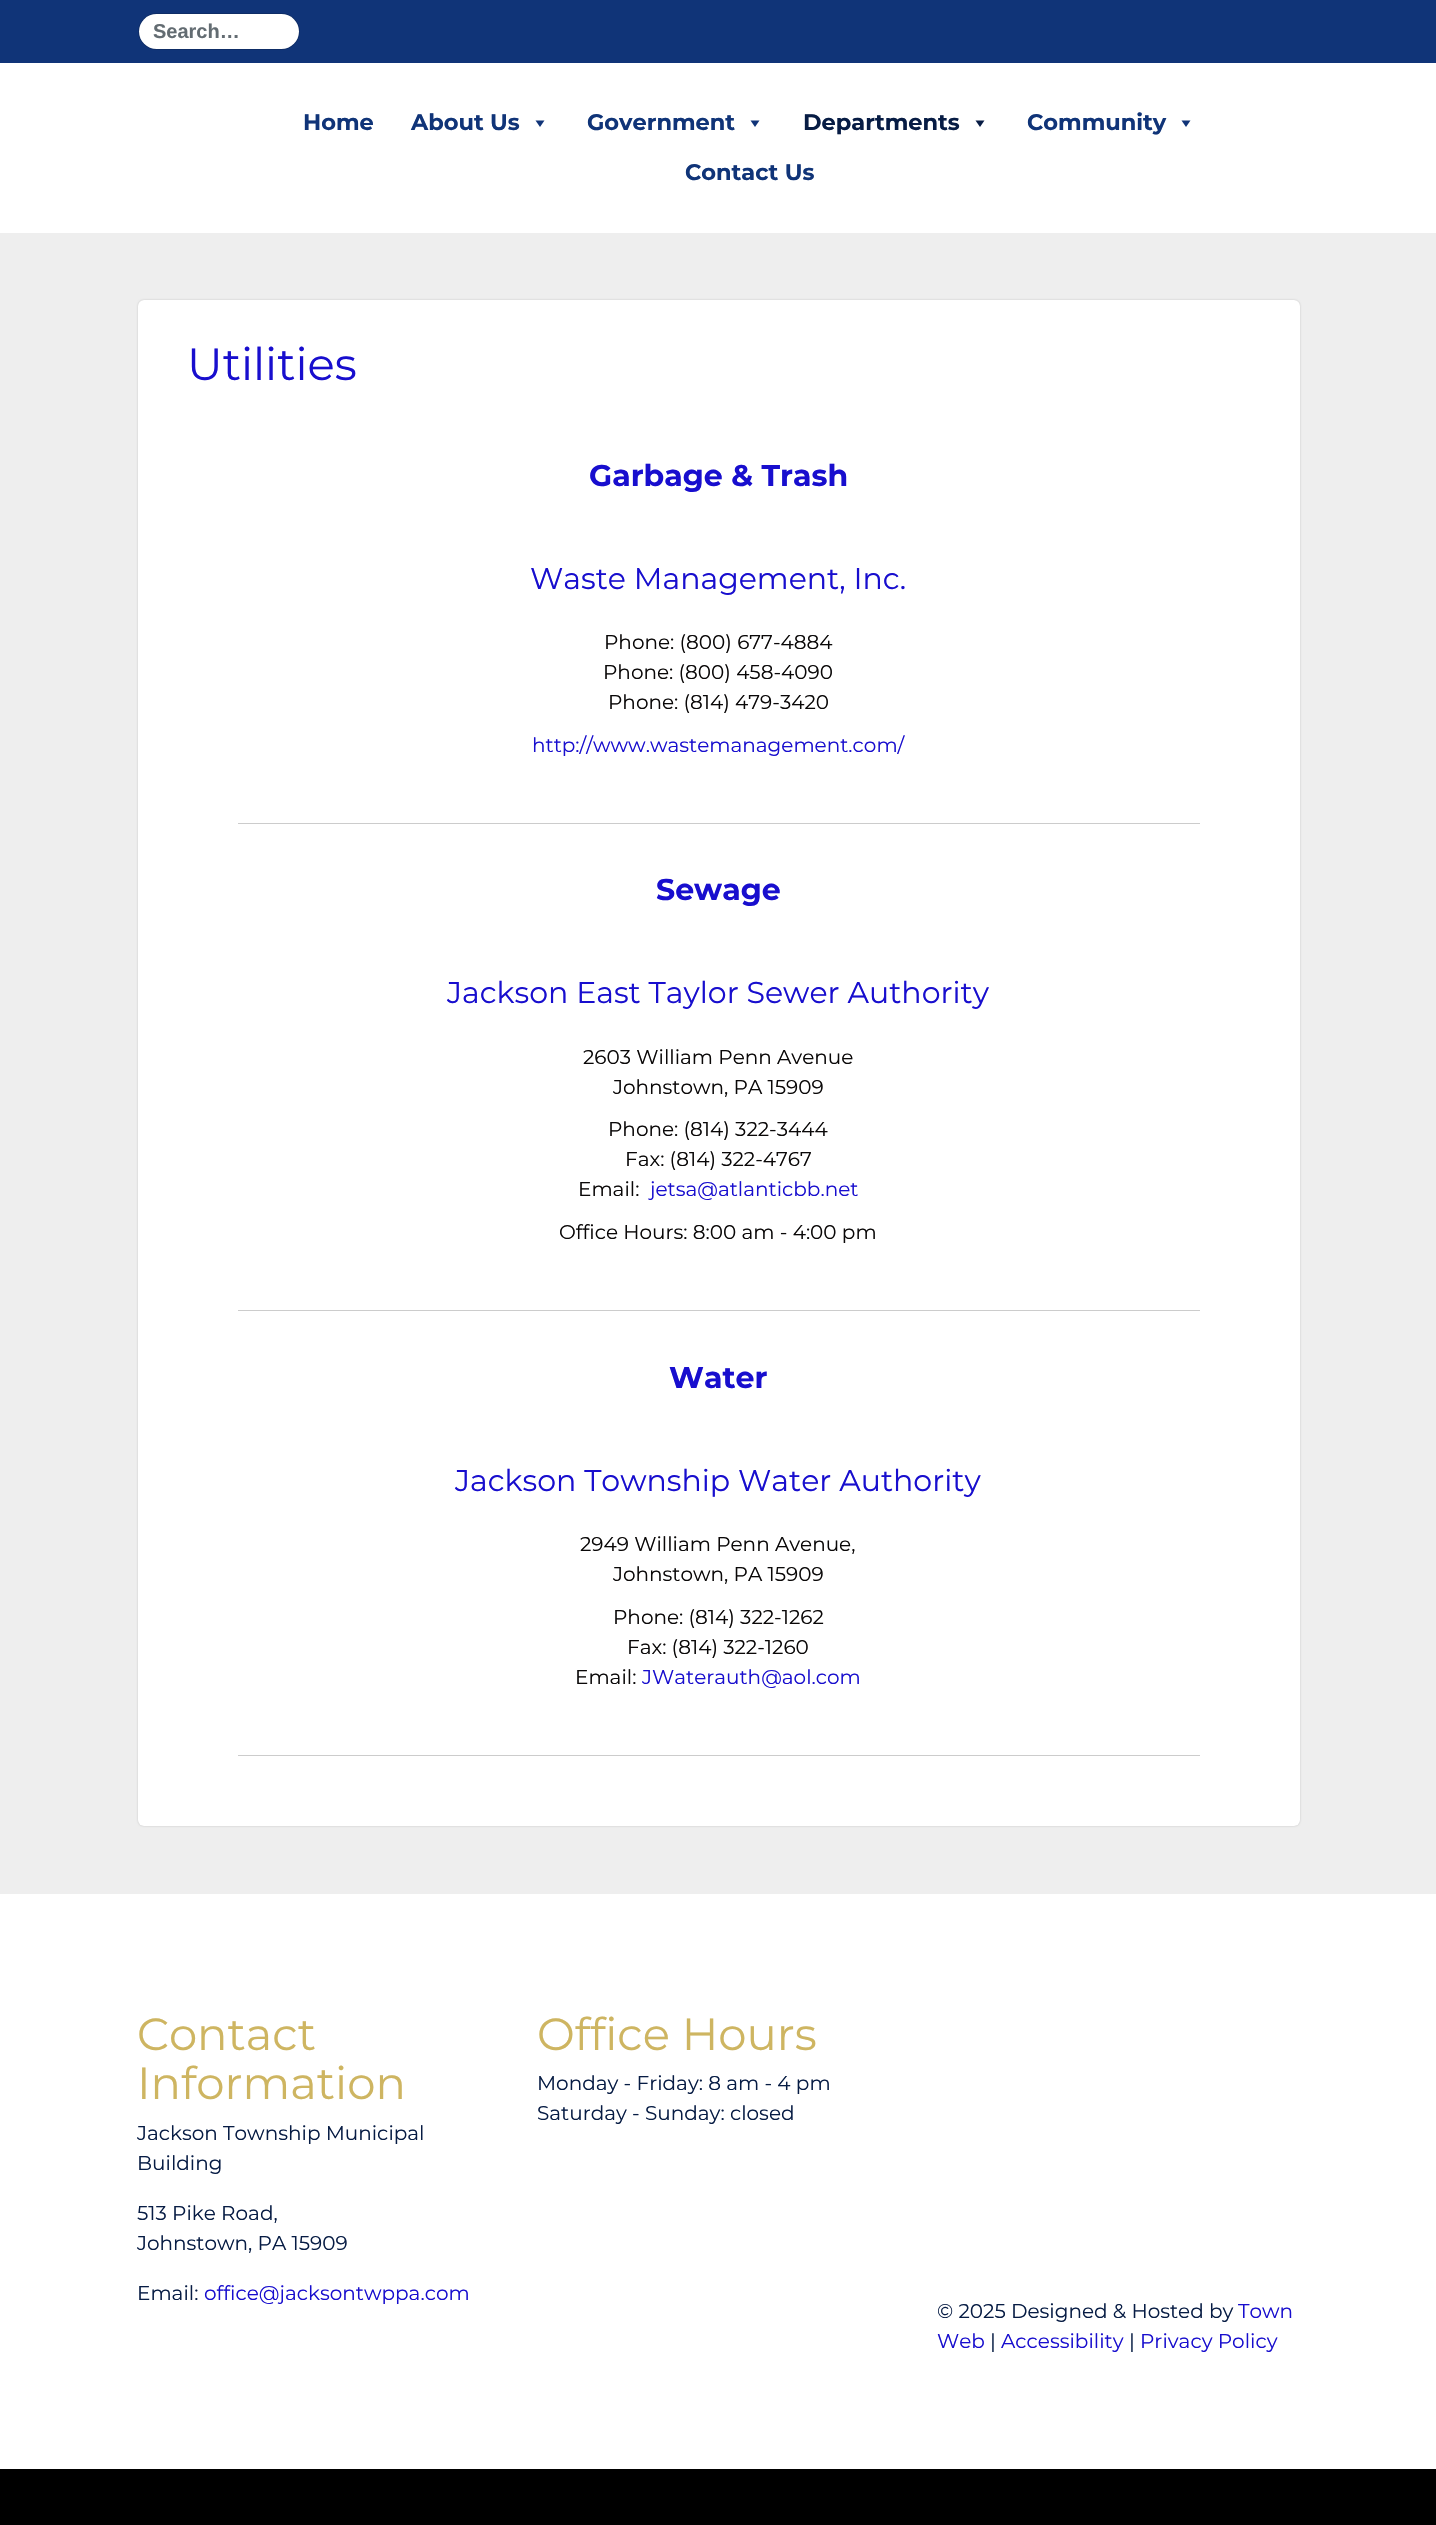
void draw(SkCanvas* canvas) {
  SkPaint paint;
  paint.setAntiAlias(true);
  auto face = [&](const char* family, int weight, float size, bool italic = false) {
    SkFontStyle style(weight, SkFontStyle::kNormal_Width,
      italic ? SkFontStyle::kItalic_Slant : SkFontStyle::kUpright_Slant);
    SkFont result(fontMgr->matchFamilyStyle(family, style), size);
    result.setSubpixel(true);
    return result;
  };
  auto shape = [&](const char* data, bool evenOdd = false) {
    SkPath result = *SkParsePath::FromSVGString(data);
    if (evenOdd) result.setFillType(SkPathFillType::kEvenOdd);
    return result;
  };
  canvas->clear(0xff000000);
  paint.setColor(0xff103478);
  canvas->drawRect(SkRect::MakeXYWH(0, 0, 1436, 63), paint);
  paint.setColor(0xffffffff);
  canvas->drawRoundRect(SkRect::MakeXYWH(139, 14, 160, 35), 17.5f, 17.5f, paint);
  paint.setStroke(true);
  paint.setStrokeWidth(1);
  paint.setColor(0x26000000);
  canvas->drawRoundRect(SkRect::MakeXYWH(138.5f, 13.5f, 161, 36), 18, 18, paint);
  paint.setStroke(false);
  paint.setColor(0xffffffff);
  canvas->drawRect(SkRect::MakeXYWH(0, 63, 1436, 170), paint);
  paint.setColor(0xff103478);
  canvas->drawPath(shape("M544.5 120.5L540 127L535.5 120.5Z"), paint);
  canvas->drawPath(shape("M759.5 120.5L755 127L750.5 120.5Z"), paint);
  paint.setColor(0xff071c44);
  canvas->drawPath(shape("M984.5 120.5L980 127L975.5 120.5Z"), paint);
  paint.setColor(0xff103478);
  canvas->drawPath(shape("M1190.5 120.5L1186 127L1181.5 120.5Z"), paint);
  paint.setColor(0xffeeeeee);
  canvas->drawRect(SkRect::MakeXYWH(0, 233, 1436, 1661), paint);
  paint.setColor(0x33000000);
  paint.setMaskFilter(SkMaskFilter::MakeBlur(kNormal_SkBlurStyle, 1));
  canvas->drawRoundRect(SkRect::MakeXYWH(138, 300, 1162, 1526), 6, 6, paint);
  paint.setMaskFilter(nullptr);
  paint.setColor(0xffffffff);
  canvas->drawRoundRect(SkRect::MakeXYWH(138, 300, 1162, 1526), 6, 6, paint);
  {
    const struct { float x, y, w, h; SkColor color; } items[] = {
      {238, 823, 962, 1, 0xffcccccc},
      {238, 1310, 962, 1, 0xffcccccc},
      {238, 1755, 962, 1, 0xffcccccc},
      {0, 1894, 1436, 575, 0xffffffff},
    };
    for (auto [x, y, w, h, color] : items) {
      paint.setColor(color);
      canvas->drawRect(SkRect::MakeXYWH(x, y, w, h), paint);
    }
  }
  auto f0 = face("Liberation Sans", 700, 20);
  paint.setColor(0xff636c72);
  canvas->drawString("Search…", 153, 38, f0, paint);
  auto f1 = face("Montserrat", 700, 22.5f);
  paint.setColor(0xff103478);
  {
    const struct { const char* s; float x, y; } items[] = {
      {"Home", 303, 130},
      {"About Us", 411, 130},
      {"Government", 587, 130},
    };
    for (auto [s, x, y] : items) {
      canvas->drawString(s, x, y, f1, paint);
    }
  }
  paint.setColor(0xff071c44);
  canvas->drawString("Departments", 803, 130, f1, paint);
  paint.setColor(0xff103478);
  canvas->drawString("Community", 1027, 130, f1, paint);
  canvas->drawString("Contact Us", 685, 180, f1, paint);
  auto f2 = face("Montserrat", 400, 45);
  paint.setColor(0xff180ece);
  canvas->drawString("Utilities", 187, 380, f2, paint);
  auto f3 = face("Montserrat", 700, 30);
  canvas->drawString("Garbage & Trash", 589, 486, f3, paint);
  auto f4 = face("Montserrat", 400, 30);
  canvas->drawString("Waste Management, Inc.", 530, 589, f4, paint);
  auto f5 = face("Montserrat", 400, 20);
  paint.setColor(0xff0a0808);
  {
    const struct { const char* s; float x, y; } items[] = {
      {"Phone: (800) 677-4884", 604, 649},
      {"Phone: (800) 458-4090", 603, 679},
      {"Phone: (814) 479-3420", 608, 709},
    };
    for (auto [s, x, y] : items) {
      canvas->drawString(s, x, y, f5, paint);
    }
  }
  paint.setColor(0xff180ece);
  canvas->drawString("http://www.wastemanagement.com/", 532, 752, f5, paint);
  canvas->drawString("Sewage", 656, 900, f3, paint);
  canvas->drawString("Jackson East Taylor Sewer Authority", 447, 1003, f4, paint);
  paint.setColor(0xff0a0808);
  {
    const struct { const char* s; float x, y; } items[] = {
      {"2603 William Penn Avenue", 583, 1064},
      {"Johnstown, PA 15909", 613, 1094},
      {"Phone: (814) 322-3444", 608, 1136},
      {"Fax: (814) 322-4767", 625, 1166},
      {"Email:", 578, 1196},
    };
    for (auto [s, x, y] : items) {
      canvas->drawString(s, x, y, f5, paint);
    }
  }
  paint.setColor(0xff180ece);
  canvas->drawString("jetsa@atlanticbb.net", 650, 1196, f5, paint);
  paint.setColor(0xff0a0808);
  canvas->drawString("Office Hours: 8:00 am - 4:00 pm", 559, 1239, f5, paint);
  paint.setColor(0xff180ece);
  canvas->drawString("Water", 669, 1388, f3, paint);
  canvas->drawString("Jackson Township Water Authority", 455, 1491, f4, paint);
  paint.setColor(0xff0a0808);
  {
    const struct { const char* s; float x, y; } items[] = {
      {"2949 William Penn Avenue,", 580, 1551},
      {"Johnstown, PA 15909", 613, 1581},
      {"Phone: (814) 322-1262", 613, 1624},
      {"Fax: (814) 322-1260", 627, 1654},
      {"Email:", 575, 1684},
    };
    for (auto [s, x, y] : items) {
      canvas->drawString(s, x, y, f5, paint);
    }
  }
  paint.setColor(0xff180ece);
  canvas->drawString("JWaterauth@aol.com", 642, 1684, f5, paint);
  paint.setColor(0xffceb561);
  canvas->drawString("Contact", 137, 2050, f2, paint);
  canvas->drawString("Information", 137, 2099, f2, paint);
  paint.setColor(0xff071c44);
  {
    const struct { const char* s; float x, y; } items[] = {
      {"Jackson Township Municipal", 137, 2140},
      {"Building", 137, 2170},
      {"513 Pike Road,", 137, 2220},
      {"Johnstown, PA 15909", 137, 2250},
      {"Email:", 137, 2300},
    };
    for (auto [s, x, y] : items) {
      canvas->drawString(s, x, y, f5, paint);
    }
  }
  paint.setColor(0xff180ece);
  canvas->drawString("office@jacksontwppa.com", 204, 2300, f5, paint);
  paint.setColor(0xffceb561);
  canvas->drawString("Office Hours", 537, 2050, f2, paint);
  paint.setColor(0xff071c44);
  {
    const struct { const char* s; float x, y; } items[] = {
      {"Monday - Friday: 8 am - 4 pm", 537, 2090},
      {"Saturday - Sunday: closed", 537, 2120},
      {"© 2025 Designed & Hosted by", 937, 2318},
    };
    for (auto [s, x, y] : items) {
      canvas->drawString(s, x, y, f5, paint);
    }
  }
  paint.setColor(0xff180ece);
  canvas->drawString("Town", 1238, 2318, f5, paint);
  canvas->drawString("Web", 937, 2348, f5, paint);
  paint.setColor(0xff071c44);
  canvas->drawString("|", 990, 2348, f5, paint);
  paint.setColor(0xff180ece);
  canvas->drawString("Accessibility", 1001, 2348, f5, paint);
  paint.setColor(0xff071c44);
  canvas->drawString("|", 1129, 2348, f5, paint);
  paint.setColor(0xff180ece);
  canvas->drawString("Privacy Policy", 1140, 2348, f5, paint);
}
